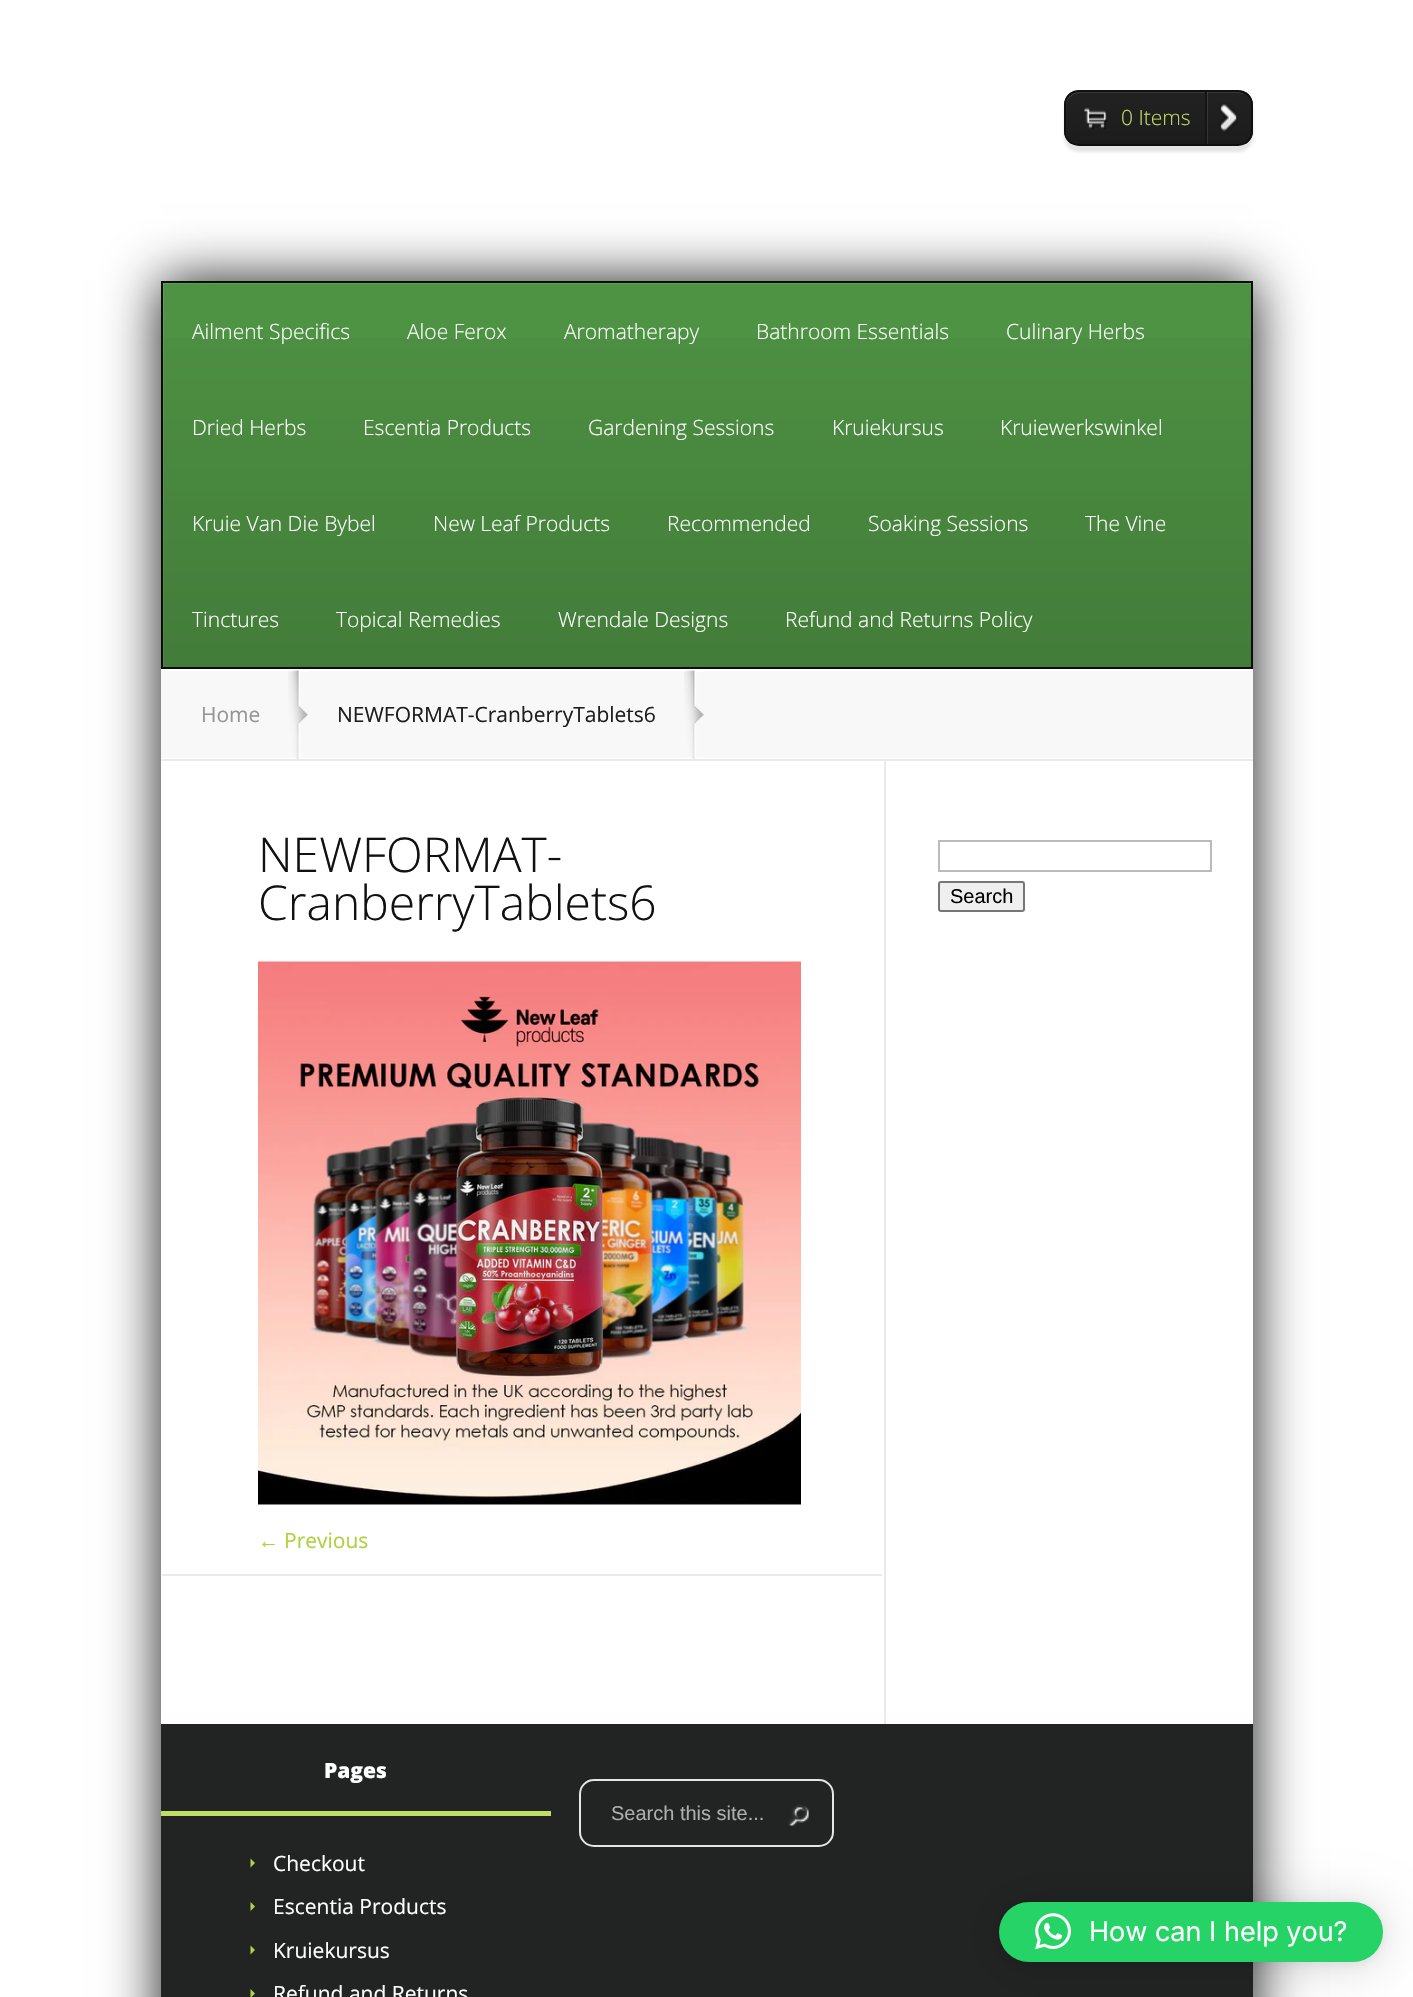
void draw(SkCanvas* canvas) {
  SkPaint paint;
  paint.setAntiAlias(true);
  auto face = [&](const char* family, int weight, float size, bool italic = false) {
    SkFontStyle style(weight, SkFontStyle::kNormal_Width,
      italic ? SkFontStyle::kItalic_Slant : SkFontStyle::kUpright_Slant);
    SkFont result(fontMgr->matchFamilyStyle(family, style), size);
    result.setSubpixel(true);
    return result;
  };
  auto paste = [&](const char* path, float x, float y, float w, float h) {
    auto image = SkImages::DeferredFromEncodedData(SkData::MakeFromFileName(path));
    canvas->drawImageRect(image, SkRect::MakeXYWH(x, y, w, h), SkSamplingOptions());
  };
  auto shape = [&](const char* data, bool evenOdd = false) {
    SkPath result = *SkParsePath::FromSVGString(data);
    if (evenOdd) result.setFillType(SkPathFillType::kEvenOdd);
    return result;
  };
  canvas->clear(0xffffffff);
  paint.setColor(0x1a000000);
  paint.setMaskFilter(SkMaskFilter::MakeBlur(kNormal_SkBlurStyle, 1.5f));
  canvas->drawRoundRect(SkRect::MakeXYWH(1064, 96, 189, 56), 15, 15, paint);
  paint.setMaskFilter(nullptr);
  canvas->save();
  canvas->clipPath(shape("M1079 90H1238C1246.5 90 1253 96.5 1253 105V131C1253 139.5 1246.5 146 1238 146H1079C1070.5 146 1064 139.5 1064 131V105C1064 96.5 1070.5 90 1079 90Z"), true);
  {
    const SkColor colors[] = {0xff232223, 0xff1c1c1c};
    const float stops[] = {0, 1};
    const SkPoint ends[] = {{1158, 91}, {1158, 144}};
    paint.setShader(SkGradientShader::MakeLinear(ends, colors, stops, 2, SkTileMode::kClamp));
    paint.setAlpha(255);
  }
  canvas->drawRect(SkRect::MakeXYWH(1064, 92, 189, 52), paint);
  canvas->restore();
  paint.setShader(nullptr);
  paint.setColor(0x1affffff);
  canvas->drawPath(shape("M1080 93H1239C1241 93 1243 94 1245 95C1243 93 1240 92 1237 92H1079C1071 92 1065 98 1065 106V130C1065 133 1066 136 1068 139C1067 137 1066 134 1066 132V106C1066 99 1073 93 1080 93Z"), paint);
  paint.setStroke(true);
  paint.setStrokeWidth(2);
  paint.setColor(0xff101010);
  canvas->drawRoundRect(SkRect::MakeXYWH(1065, 91, 187, 54), 14, 14, paint);
  paste("img/1.png", 1084, 107, 24, 22);
  paste("img/2.png", 1219, 103, 19, 29);
  paint.setStroke(false);
  paint.setColor(0x1affffff);
  canvas->drawRect(SkRect::MakeXYWH(1207, 92, 1, 52), paint);
  paint.setColor(0xff151515);
  canvas->drawRect(SkRect::MakeXYWH(1205, 92, 2, 52), paint);
  paint.setColor(0xe6000000);
  paint.setMaskFilter(SkMaskFilter::MakeBlur(kNormal_SkBlurStyle, 26));
  canvas->drawRect(SkRect::MakeXYWH(161, 281, 1092, 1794), paint);
  paint.setMaskFilter(nullptr);
  paint.setColor(0xffffffff);
  canvas->drawRect(SkRect::MakeXYWH(161, 761, 1092, 963), paint);
  paint.setColor(0xff4e9243);
  canvas->drawRect(SkRect::MakeXYWH(164, 284, 1087, 383), paint);
  canvas->save();
  canvas->clipRect(SkRect::MakeXYWH(162, 282, 1089, 386));
  paint.setColor(0xff609d56);
  canvas->drawPath(shape("M14 134H1400V816H14ZM164 284H1252V669H164Z", true), paint);
  canvas->restore();
  paint.setStroke(true);
  paint.setColor(0xff0d0d0d);
  canvas->drawRect(SkRect::MakeXYWH(162, 282, 1090, 386), paint);
  paint.setStroke(false);
  {
    const SkColor colors[] = {0x00000000, 0x26000000};
    const float stops[] = {0, 1};
    const SkPoint ends[] = {{707, 282}, {707, 668}};
    paint.setShader(SkGradientShader::MakeLinear(ends, colors, stops, 2, SkTileMode::kClamp));
    paint.setAlpha(255);
  }
  canvas->drawRect(SkRect::MakeXYWH(163, 338, 1088, 329), paint);
  paint.setShader(nullptr);
  {
    const struct { float x, y, w, h; SkColor color; } items[] = {
      {161, 671, 1092, 87, 0xfff8f8f8},
      {161, 669, 1092, 2, 0xffffffff},
      {161, 758, 1092, 1, 0xffffffff},
      {161, 759, 1092, 2, 0xffeaeaea},
    };
    for (auto [x, y, w, h, color] : items) {
      paint.setColor(color);
      canvas->drawRect(SkRect::MakeXYWH(x, y, w, h), paint);
    }
  }
  paste("img/3.png", 288, 670, 20, 89);
  paste("img/4.png", 684, 670, 20, 89);
  paste("img/5.png", 258, 961, 543, 544);
  canvas->drawRect(SkRect::MakeXYWH(162, 1574, 720, 2), paint);
  canvas->drawRect(SkRect::MakeXYWH(884, 761, 2, 963), paint);
  paint.setStroke(true);
  paint.setColor(0xffbbbbbb);
  canvas->drawRect(SkRect::MakeXYWH(939, 841, 272, 30), paint);
  paint.setStroke(false);
  paint.setColor(0xffefefef);
  canvas->drawRoundRect(SkRect::MakeXYWH(939, 882, 85, 29), 2, 2, paint);
  paint.setStroke(true);
  paint.setColor(0xff767676);
  canvas->drawRoundRect(SkRect::MakeXYWH(939, 882, 85, 29), 2, 2, paint);
  paint.setStroke(false);
  paint.setColor(0xff222323);
  canvas->drawRect(SkRect::MakeXYWH(161, 1724, 1092, 273), paint);
  paint.setColor(0xffc0de64);
  canvas->drawRect(SkRect::MakeXYWH(161, 1811, 390, 5), paint);
  paint.setColor(0xffb2d34d);
  canvas->drawPath(shape("M250.5 1867.5V1858.5L255 1863Z"), paint);
  canvas->drawPath(shape("M250.5 1911V1902L255 1906.5Z"), paint);
  canvas->drawPath(shape("M250.5 1954.5V1945.5L255 1950Z"), paint);
  canvas->drawPath(shape("M250.5 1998V1989L255 1993.5Z"), paint);
  paint.setStroke(true);
  paint.setColor(0xffe5e5e5);
  canvas->drawRoundRect(SkRect::MakeXYWH(580, 1780, 253, 66), 14, 14, paint);
  paste("img/6.png", 788, 1804, 21, 22);
  paint.setStroke(false);
  paint.setColor(0x29000000);
  paint.setMaskFilter(SkMaskFilter::MakeBlur(kNormal_SkBlurStyle, 24));
  canvas->drawRoundRect(SkRect::MakeXYWH(999, 1905, 384, 60), 30, 30, paint);
  paint.setMaskFilter(nullptr);
  paint.setColor(0x0f000000);
  paint.setMaskFilter(SkMaskFilter::MakeBlur(kNormal_SkBlurStyle, 4.5f));
  canvas->drawRoundRect(SkRect::MakeXYWH(999, 1904, 384, 60), 30, 30, paint);
  paint.setMaskFilter(nullptr);
  paint.setColor(0xff25d366);
  canvas->drawRoundRect(SkRect::MakeXYWH(999, 1902, 384, 60), 30, 30, paint);
  paste("img/7.png", 1035, 1913, 36, 37);
  auto f0 = face("Open Sans", 300, 21);
  paint.setColor(0xffc0de64);
  canvas->drawString("0 Items", 1121, 125, f0, paint);
  paint.setColor(0xffffffff);
  {
    const struct { const char* s; float x, y; } items[] = {
      {"Ailment Specifics", 192, 339},
      {"Aloe Ferox", 407, 339},
      {"Aromatherapy", 564, 339},
      {"Bathroom Essentials", 756, 339},
      {"Culinary Herbs", 1006, 339},
      {"Dried Herbs", 192, 435},
      {"Escentia Products", 363, 435},
      {"Gardening Sessions", 588, 435},
      {"Kruiekursus", 832, 435},
      {"Kruiewerkswinkel", 1000, 435},
      {"Kruie Van Die Bybel", 192, 531},
      {"New Leaf Products", 433, 531},
      {"Recommended", 667, 531},
      {"Soaking Sessions", 868, 531},
      {"The Vine", 1085, 531},
      {"Tinctures", 192, 627},
      {"Topical Remedies", 336, 627},
      {"Wrendale Designs", 558, 627},
      {"Refund and Returns Policy", 785, 627},
    };
    for (auto [s, x, y] : items) {
      canvas->drawString(s, x, y, f0, paint);
    }
  }
  auto f1 = face("Open Sans", 400, 21);
  paint.setColor(0xff969696);
  canvas->drawString("Home", 201, 722, f1, paint);
  paint.setColor(0xff1f1e1e);
  canvas->drawString("NEWFORMAT-CranberryTablets6", 337, 722, f1, paint);
  auto f2 = face("Open Sans", 300, 48);
  paint.setColor(0xff111111);
  canvas->drawString("NEWFORMAT-", 258, 872, f2, paint);
  canvas->drawString("CranberryTablets6", 258, 920, f2, paint);
  auto f3 = face("Liberation Sans", 400, 21);
  paint.setColor(0xffaed23f);
  canvas->drawString("←", 258, 1548, f3, paint);
  canvas->drawString("Previous", 284, 1548, f1, paint);
  auto f4 = face("Liberation Sans", 400, 20);
  paint.setColor(0xff000000);
  canvas->drawString("Search", 950, 903, f4, paint);
  auto f5 = face("Open Sans", 800, 21);
  paint.setColor(0xffffffff);
  canvas->drawString("Pages", 324, 1778, f5, paint);
  {
    const struct { const char* s; float x, y; } items[] = {
      {"Checkout", 273, 1871},
      {"Escentia Products", 273, 1914},
      {"Kruiekursus", 273, 1958},
      {"Refund and Returns", 273, 2001},
    };
    for (auto [s, x, y] : items) {
      canvas->drawString(s, x, y, f1, paint);
    }
  }
  paint.setColor(0xffadadad);
  canvas->drawString("Search this site...", 611, 1820, f4, paint);
  auto f6 = face("Inter", 400, 27);
  paint.setColor(0xffffffff);
  canvas->drawString("How can I help you?", 1089, 1941, f6, paint);
}
